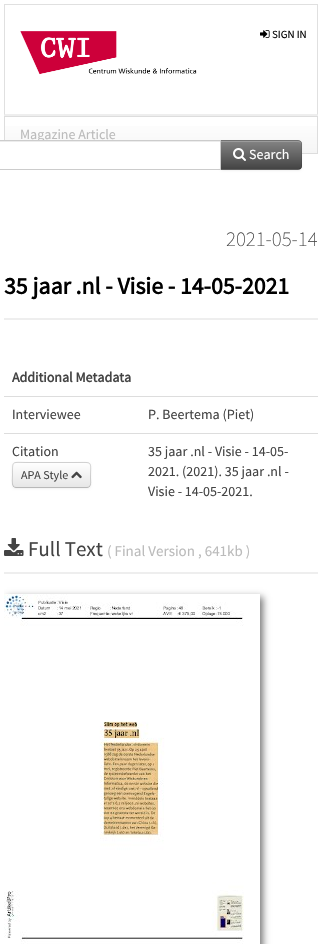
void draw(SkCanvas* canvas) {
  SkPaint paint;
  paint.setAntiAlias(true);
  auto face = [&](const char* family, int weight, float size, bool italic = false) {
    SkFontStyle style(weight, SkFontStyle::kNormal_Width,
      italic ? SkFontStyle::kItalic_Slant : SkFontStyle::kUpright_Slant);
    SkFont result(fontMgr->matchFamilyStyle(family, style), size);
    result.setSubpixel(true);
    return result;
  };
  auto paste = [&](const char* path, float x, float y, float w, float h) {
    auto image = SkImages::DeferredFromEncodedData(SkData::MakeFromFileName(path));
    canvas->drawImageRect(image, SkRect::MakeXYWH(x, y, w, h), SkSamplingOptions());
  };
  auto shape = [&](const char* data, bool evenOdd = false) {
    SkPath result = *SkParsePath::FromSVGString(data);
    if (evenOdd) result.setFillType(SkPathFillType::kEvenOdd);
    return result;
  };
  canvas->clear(0xffffffff);
  paint.setColor(0xffe0e0e0);
  canvas->drawRect(SkRect::MakeXYWH(4, 4, 314, 1), paint);
  canvas->drawPath(shape("M318 4V116L317 114V5Z"), paint);
  paint.setColor(0xffeeeeee);
  canvas->drawPath(shape("M318 116H4L5 114H317Z"), paint);
  paint.setColor(0xffe0e0e0);
  canvas->drawPath(shape("M4 116V4L5 5V114Z"), paint);
  paste("img/1.png", 20, 31, 177, 44);
  paste("img/2.png", 260, 30, 10, 8);
  {
    const SkColor colors[] = {0xffffffff, 0xfff5f5f5};
    const float stops[] = {0, 1};
    const SkPoint ends[] = {{161, 117}, {161, 153}};
    paint.setShader(SkGradientShader::MakeLinear(ends, colors, stops, 2, SkTileMode::kClamp));
    paint.setAlpha(255);
  }
  canvas->drawRect(SkRect::MakeXYWH(5, 126, 312, 27), paint);
  paint.setStroke(true);
  paint.setStrokeWidth(1);
  paint.setShader(nullptr);
  paint.setColor(0xffdddddd);
  canvas->drawRect(SkRect::MakeXYWH(4.5f, 116.5f, 313, 37), paint);
  paint.setStroke(false);
  paint.setColor(0x0d000000);
  paint.setMaskFilter(SkMaskFilter::MakeBlur(kNormal_SkBlurStyle, 1));
  canvas->drawRoundRect(SkRect::MakeXYWH(220, 141, 82, 30), 4, 4, paint);
  paint.setMaskFilter(nullptr);
  paint.setColor(0xff7f7f7f);
  canvas->drawPath(shape("M220 140H298C300 140 302 142 302 144V166C302 168 300 170 298 170H220Z"), paint);
  canvas->save();
  canvas->clipPath(shape("M220 140H298C300 140 302 142 302 144V166C302 168 300 170 298 170H220Z"), true);
  {
    const SkColor colors[] = {0xff848484, 0xff444444};
    const float stops[] = {0, 1};
    const SkPoint ends[] = {{261, 141}, {261, 169}};
    paint.setShader(SkGradientShader::MakeLinear(ends, colors, stops, 2, SkTileMode::kClamp));
    paint.setAlpha(255);
  }
  canvas->drawRect(SkRect::MakeXYWH(221, 141, 81, 28), paint);
  canvas->restore();
  paint.setShader(nullptr);
  paint.setColor(0xff9c9c9c);
  canvas->drawPath(shape("M221 142H298C300 142 301 143 301 145V144C301 142 300 141 298 141H221Z"), paint);
  paint.setColor(0x1a000000);
  canvas->drawPath(shape("M220 140L221 141H299L300 142L301 141L298 140Z"), paint);
  canvas->drawPath(shape("M302 166V144C302 143 301.5 142 301 141L300 142C301 142 301 143 301 144V166C301 167 301 168 300 168L301 169C301.5 168 302 167 302 166Z"), paint);
  paint.setColor(0x40000000);
  canvas->drawPath(shape("M298 170L301 169L300 168L299 169H221L220 170Z"), paint);
  paste("img/3.png", 233, 148, 13, 13);
  paint.setColor(0xffeeeeee);
  canvas->drawRect(SkRect::MakeXYWH(4, 318, 314, 2), paint);
  paint.setColor(0xffdddddd);
  canvas->drawRect(SkRect::MakeXYWH(4, 396, 314, 1), paint);
  paint.setColor(0x0d000000);
  paint.setMaskFilter(SkMaskFilter::MakeBlur(kNormal_SkBlurStyle, 1));
  canvas->drawRoundRect(SkRect::MakeXYWH(12, 463, 79, 26), 4, 4, paint);
  paint.setMaskFilter(nullptr);
  paint.setColor(0xfff5f5f5);
  canvas->drawRoundRect(SkRect::MakeXYWH(12, 462, 79, 26), 4, 4, paint);
  canvas->save();
  canvas->clipPath(shape("M16 462H87C89 462 91 464 91 466V484C91 486 89 488 87 488H16C14 488 12 486 12 484V466C12 464 14 462 16 462Z"), true);
  {
    const SkColor colors[] = {0xffffffff, 0xffe6e6e6};
    const float stops[] = {0, 1};
    const SkPoint ends[] = {{52, 463}, {52, 487}};
    paint.setShader(SkGradientShader::MakeLinear(ends, colors, stops, 2, SkTileMode::kClamp));
    paint.setAlpha(255);
  }
  canvas->drawRect(SkRect::MakeXYWH(12, 463, 79, 24), paint);
  canvas->restore();
  paint.setStroke(true);
  paint.setShader(nullptr);
  paint.setColor(0xffb8b8b8);
  canvas->drawPath(shape("M89.5 486.5C89 487 88 487.5 87 487.5H16C15 487.5 14 487 13.5 486.5"), paint);
  paint.setColor(0x26000000);
  canvas->drawPath(shape("M13.5 486.5C11.5 484.5 12.5 477.5 12.5 475C12.5 460 11.5 462.5 28 462.5H75C93.5 462.5 90.5 460.5 90.5 478C90.5 480.5 91.5 484.5 89.5 486.5"), paint);
  paste("img/4.png", 71, 471, 11, 8);
  paint.setStroke(false);
  paint.setColor(0xffdddddd);
  canvas->drawRect(SkRect::MakeXYWH(4, 433, 314, 1), paint);
  paint.setColor(0xffeeeeee);
  canvas->drawRect(SkRect::MakeXYWH(4, 572, 314, 2), paint);
  paste("img/5.png", 4, 538, 20, 18);
  canvas->save();
  canvas->clipRect(SkRect::MakeXYWH(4, 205, 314, 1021));
  canvas->clipPath(shape("M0 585H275V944H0ZM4 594H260V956H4Z", true), true);
  paint.setColor(0xff777777);
  paint.setMaskFilter(SkMaskFilter::MakeBlur(kNormal_SkBlurStyle, 3.5f));
  canvas->drawRect(SkRect::MakeXYWH(7, 597, 256, 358), paint);
  paint.setMaskFilter(nullptr);
  canvas->restore();
  paste("img/6.png", 4, 594, 240, 350);
  auto f0 = face("Source Sans Pro", 400, 11);
  paint.setColor(0xff000000);
  canvas->drawString("SIGN IN", 272, 38, f0, paint);
  auto f1 = face("Source Sans Pro", 400, 14);
  paint.setColor(0xffbbbbbb);
  canvas->drawString("Magazine Article", 20, 139, f1, paint);
  paint.setColor(0xffffffff);
  canvas->drawRect(SkRect::MakeXYWH(4, 142, 216, 26), paint);
  paint.setColor(0xffececec);
  canvas->drawPath(shape("M-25 142H220V141H-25C-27 141-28 143-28 145C-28 143-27 142-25 142Z"), paint);
  paint.setStroke(true);
  paint.setColor(0xffcccccc);
  canvas->drawRect(SkRect::MakeXYWH(-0.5f, 140.5f, 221, 29), paint);
  paint.setStroke(false);
  paint.setColor(0xffffffff);
  canvas->drawString("Search", 249, 159, f1, paint);
  auto f2 = face("Source Sans Pro", 200, 21);
  paint.setColor(0xff444444);
  canvas->drawString("2021-05-14", 226, 246, f2, paint);
  auto f3 = face("Source Sans Pro", 700, 23.75f);
  paint.setColor(0xff000000);
  canvas->drawString("35 jaar .nl - Visie - 14-05-2021", 4, 294, f3, paint);
  auto f4 = face("Source Sans Pro", 700, 14);
  paint.setColor(0xff444444);
  canvas->drawString("Additional Metadata", 12, 382, f4, paint);
  {
    const struct { const char* s; float x, y; } items[] = {
      {"Interviewee", 12, 419},
      {"P. Beertema (Piet)", 148, 419},
      {"Citation", 12, 456},
    };
    for (auto [s, x, y] : items) {
      canvas->drawString(s, x, y, f1, paint);
    }
  }
  auto f5 = face("Source Sans Pro", 400, 12);
  canvas->drawString("APA Style", 21, 479, f5, paint);
  {
    const struct { const char* s; float x, y; } items[] = {
      {"35 jaar .nl - Visie - 14-05-", 148, 456},
      {"2021. (2021). 35 jaar .nl -", 148, 476},
      {"Visie - 14-05-2021.", 148, 496},
    };
    for (auto [s, x, y] : items) {
      canvas->drawString(s, x, y, f1, paint);
    }
  }
  auto f6 = face("Source Sans Pro", 400, 21);
  canvas->drawString("Full Text", 28, 556, f6, paint);
  auto f7 = face("Source Sans Pro", 400, 15);
  paint.setColor(0xffbbbbbb);
  canvas->drawString("( Final Version , 641kb )", 107, 556, f7, paint);
}
